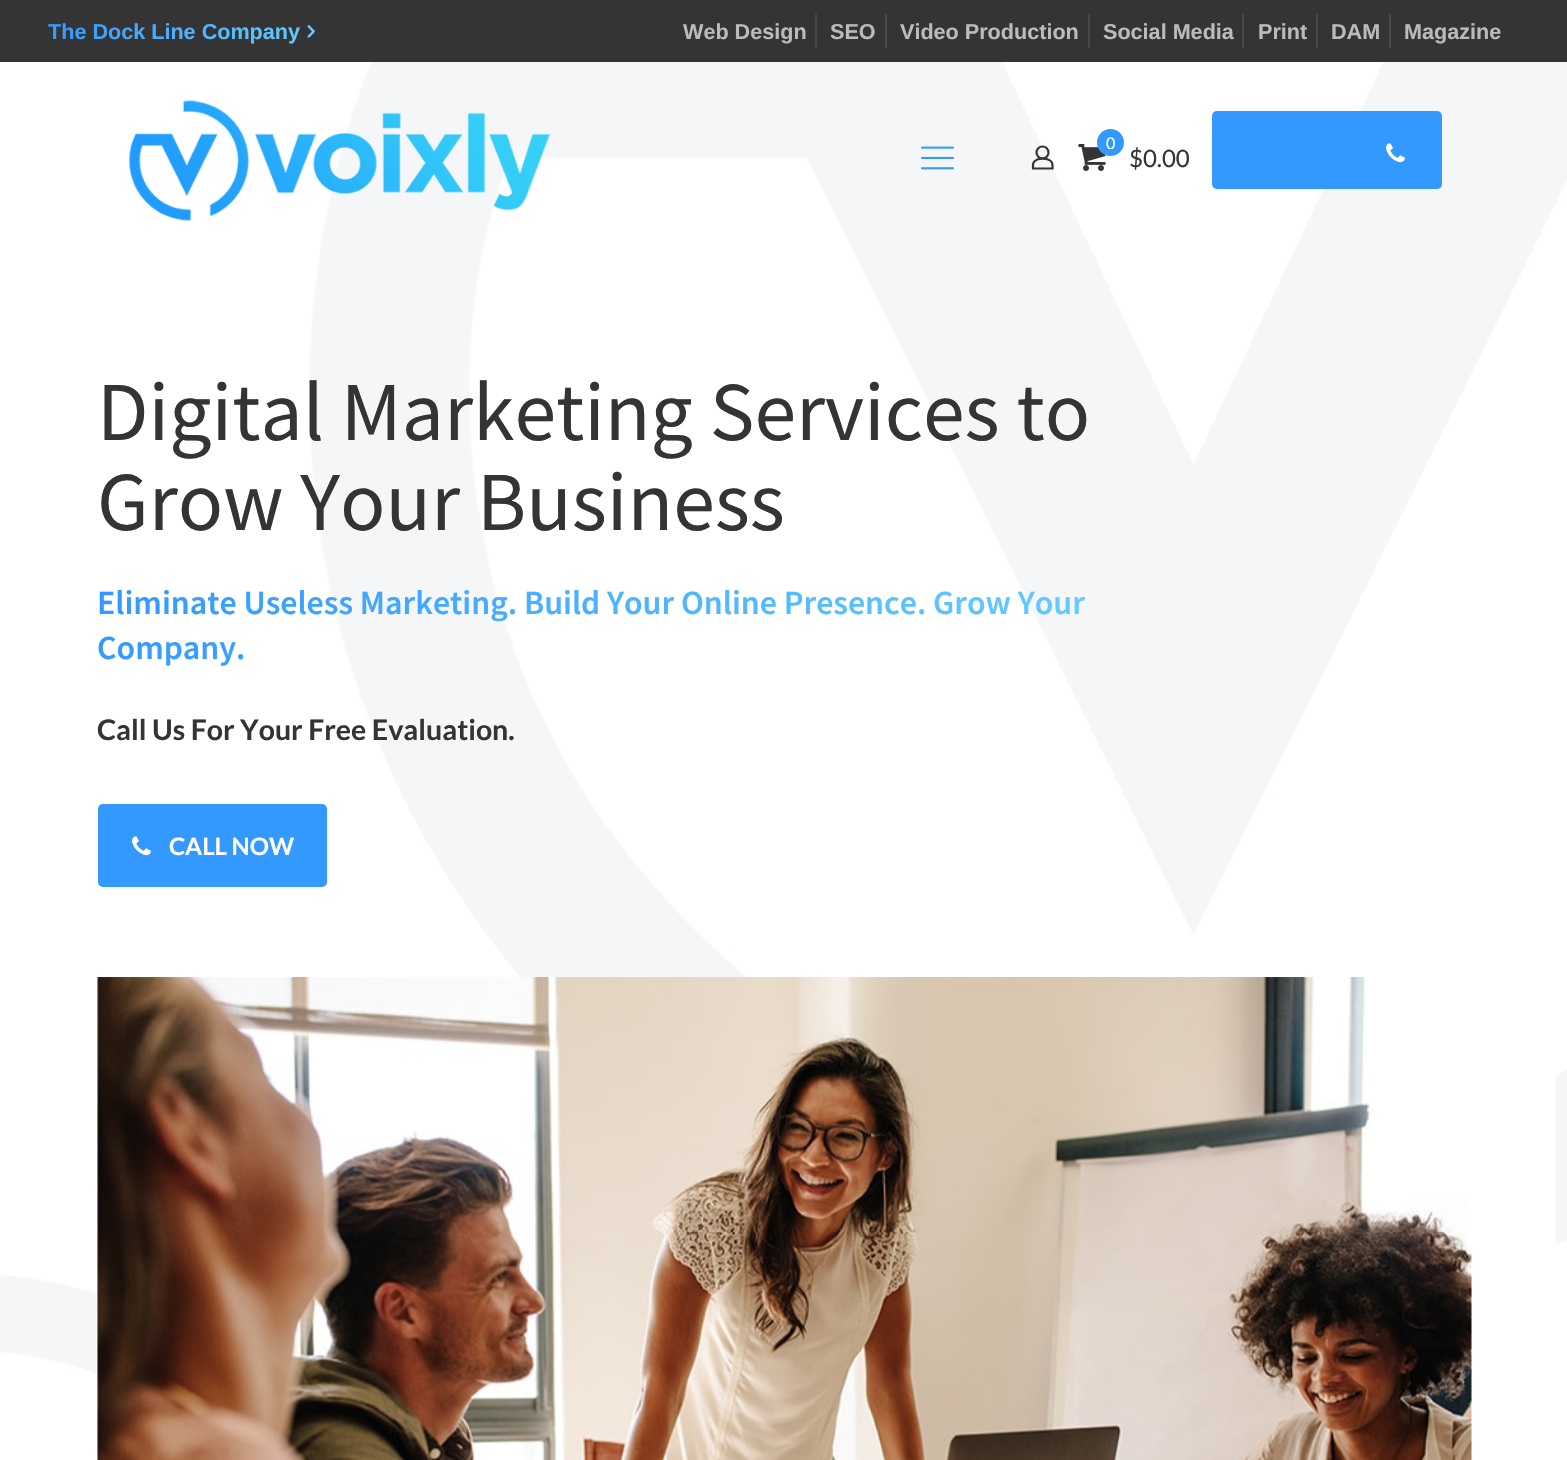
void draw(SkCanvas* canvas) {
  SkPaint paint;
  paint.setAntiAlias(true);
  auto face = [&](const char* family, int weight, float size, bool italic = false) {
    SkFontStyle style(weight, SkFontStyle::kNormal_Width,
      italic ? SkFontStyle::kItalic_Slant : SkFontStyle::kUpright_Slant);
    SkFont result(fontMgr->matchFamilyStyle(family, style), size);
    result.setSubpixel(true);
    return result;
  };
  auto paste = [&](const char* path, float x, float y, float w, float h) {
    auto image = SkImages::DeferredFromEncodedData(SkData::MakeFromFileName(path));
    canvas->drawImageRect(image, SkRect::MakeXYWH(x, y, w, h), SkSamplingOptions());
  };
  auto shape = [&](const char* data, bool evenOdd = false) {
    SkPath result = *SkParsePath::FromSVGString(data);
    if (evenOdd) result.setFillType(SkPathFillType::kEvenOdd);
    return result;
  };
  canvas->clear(0xffffffff);
  paste("img/1.png", 0, 62, 1567, 1314);
  paint.setColor(0xff343434);
  canvas->drawRect(SkRect::MakeXYWH(0, 0, 1567, 62), paint);
  paste("img/2.png", 307, 25, 8, 13);
  {
    const struct { float x, y, w, h; SkColor color; } items[] = {
      {815, 14, 2, 34, 0xff484848},
      {885, 14, 2, 34, 0xff484848},
      {1088, 14, 2, 34, 0xff484848},
      {1242, 14, 2, 34, 0xff484848},
      {1316, 14, 2, 34, 0xff484848},
      {1389, 14, 2, 34, 0xff484848},
    };
    for (auto [x, y, w, h, color] : items) {
      paint.setColor(color);
      canvas->drawRect(SkRect::MakeXYWH(x, y, w, h), paint);
    }
  }
  paste("img/3.png", 128, 100, 423, 121);
  paste("img/4.png", 921, 146, 33, 24);
  paint.setStroke(true);
  paint.setStrokeWidth(2.2f);
  paint.setColor(0xff343434);
  canvas->drawCircle(1042.5f, 152.5f, 6, paint);
  canvas->drawPath(shape("M1052.5 165V168.5H1033V164C1035 156.5 1052.5 157 1052.5 165Z"), paint);
  paste("img/5.png", 1078, 144, 28, 27);
  paint.setStroke(false);
  paint.setColor(0xff3399ff);
  canvas->drawCircle(1110.5f, 142.5f, 13.5f, paint);
  canvas->drawRoundRect(SkRect::MakeXYWH(1212, 111, 230, 78), 5, 5, paint);
  paste("img/6.png", 1386, 143, 19, 20);
  canvas->drawRoundRect(SkRect::MakeXYWH(98, 804, 229, 83), 5, 5, paint);
  paste("img/6.png", 132, 836, 19, 20);
  paste("img/7.png", 97, 977, 1375, 483);
  auto f0 = face("Liberation Sans", 700, 21.6f);
  {
    const SkColor colors[] = {0xff3399ff, 0xff66ccff};
    const float stops[] = {0, 1};
    const SkPoint ends[] = {{48, 32}, {321, 31}};
    paint.setShader(SkGradientShader::MakeLinear(ends, colors, stops, 2, SkTileMode::kClamp));
    paint.setAlpha(255);
  }
  canvas->drawString("The Dock Line Company", 48, 39, f0, paint);
  paint.setShader(nullptr);
  paint.setColor(0xffbbbbbb);
  {
    const struct { const char* s; float x, y; } items[] = {
      {"Web Design", 683, 39},
      {"SEO", 830, 39},
      {"Video Production", 900, 39},
      {"Social Media", 1103, 39},
      {"Print", 1258, 39},
      {"DAM", 1331, 39},
      {"Magazine", 1404, 39},
    };
    for (auto [s, x, y] : items) {
      canvas->drawString(s, x, y, f0, paint);
    }
  }
  auto f1 = face("Lato", 400, 16);
  paint.setColor(0xffffffff);
  canvas->drawString("0", 1106, 149, f1, paint);
  auto f2 = face("Lato", 400, 24);
  paint.setColor(0xff343434);
  canvas->drawString("$0.00", 1129, 167, f2, paint);
  auto f3 = face("Noto Sans JP", 400, 75);
  canvas->drawString("Digital Marketing Services to", 97, 440, f3, paint);
  canvas->drawString("Grow Your Business", 97, 530, f3, paint);
  auto f4 = face("Noto Sans JP", 600, 30);
  {
    const SkColor colors[] = {0xff3399ff, 0xff66ccff};
    const float stops[] = {0, 1};
    const SkPoint ends[] = {{97, 624}, {1118, 624}};
    paint.setShader(SkGradientShader::MakeLinear(ends, colors, stops, 2, SkTileMode::kClamp));
    paint.setAlpha(255);
  }
  canvas->drawString("Eliminate Useless Marketing. Build Your Online Presence. Grow Your", 97, 614, f4, paint);
  canvas->drawString("Company.", 97, 659, f4, paint);
  auto f5 = face("Lato", 700, 28.5f);
  paint.setShader(nullptr);
  paint.setColor(0xff343434);
  canvas->drawString("Call Us For Your Free Evaluation.", 97, 740, f5, paint);
  auto f6 = face("Lato", 700, 24);
  paint.setColor(0xffffffff);
  canvas->drawString("CALL NOW", 169, 855, f6, paint);
}
